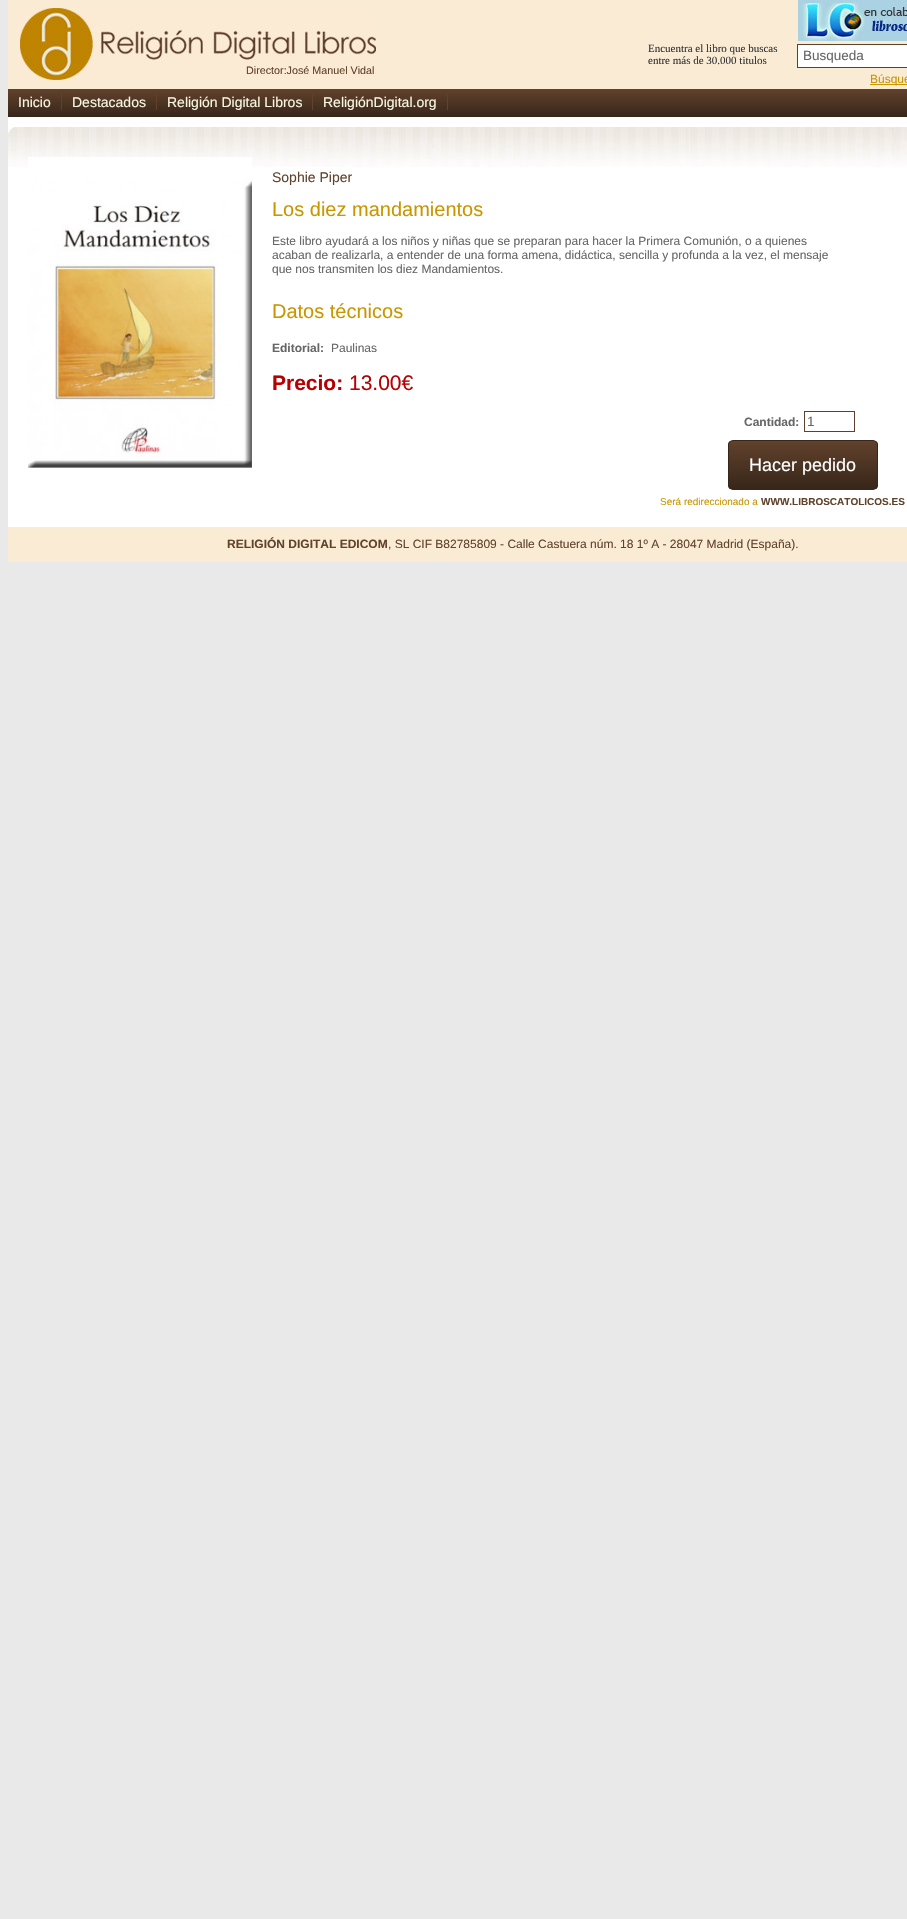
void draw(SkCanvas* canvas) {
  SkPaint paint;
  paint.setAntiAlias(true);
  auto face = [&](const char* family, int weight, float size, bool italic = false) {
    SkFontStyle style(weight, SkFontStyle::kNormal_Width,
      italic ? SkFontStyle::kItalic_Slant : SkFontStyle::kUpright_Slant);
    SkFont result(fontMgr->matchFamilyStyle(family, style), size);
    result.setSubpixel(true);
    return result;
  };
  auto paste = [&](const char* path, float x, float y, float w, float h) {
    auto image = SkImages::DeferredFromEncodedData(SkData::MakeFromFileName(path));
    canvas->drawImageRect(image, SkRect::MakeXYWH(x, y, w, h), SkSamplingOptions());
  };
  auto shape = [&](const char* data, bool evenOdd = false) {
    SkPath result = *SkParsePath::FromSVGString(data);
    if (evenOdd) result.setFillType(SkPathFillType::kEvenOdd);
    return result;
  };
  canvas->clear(0xffe9e9e9);
  paint.setColor(0xfff9ebd4);
  canvas->drawRect(SkRect::MakeXYWH(8, 0, 899, 89), paint);
  paste("img/1.png", 16, 8, 360, 72);
  paste("img/2.png", 798, 0, 109, 41);
  paint.setColor(0xffffffff);
  canvas->drawRect(SkRect::MakeXYWH(797.5f, 44.5f, 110, 23), paint);
  paint.setStroke(true);
  paint.setStrokeWidth(1);
  paint.setColor(0xff5e402b);
  canvas->drawRect(SkRect::MakeXYWH(797.5f, 44.5f, 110, 23), paint);
  paint.setStroke(false);
  paint.setColor(0xffca9600);
  canvas->drawRect(SkRect::MakeXYWH(870, 84, 37, 1), paint);
  {
    const SkColor colors[] = {0xff61422c, 0xff372619};
    const float stops[] = {0, 1};
    const SkPoint ends[] = {{513, 89}, {513, 117}};
    paint.setShader(SkGradientShader::MakeLinear(ends, colors, stops, 2, SkTileMode::kClamp));
    paint.setAlpha(255);
  }
  canvas->drawRect(SkRect::MakeXYWH(8, 89, 899, 28), paint);
  paint.setShader(nullptr);
  {
    const struct { float x, y, w, h; SkColor color; } items[] = {
      {61, 94, 1, 16, 0xff61422c},
      {156, 94, 1, 16, 0xff61422c},
      {312, 94, 1, 16, 0xff61422c},
      {447, 94, 1, 16, 0xff61422c},
      {8, 117, 899, 410, 0xffffffff},
    };
    for (auto [x, y, w, h, color] : items) {
      paint.setColor(color);
      canvas->drawRect(SkRect::MakeXYWH(x, y, w, h), paint);
    }
  }
  paste("img/3.png", 8, 127, 899, 40);
  paste("img/4.png", 28, 157, 224, 311);
  paint.setStroke(true);
  paint.setColor(0xff5e402b);
  canvas->drawRect(SkRect::MakeXYWH(804.5f, 411.5f, 50, 20), paint);
  canvas->save();
  canvas->clipPath(shape("M733 440H873C876 440 878 442 878 445V485C878 488 876 490 873 490H733C730 490 728 488 728 485V445C728 442 730 440 733 440Z"), true);
  paint.setStroke(false);
  {
    const SkColor colors[] = {0xff61422c, 0xff372619};
    const float stops[] = {0, 1};
    const SkPoint ends[] = {{803, 441}, {803, 489}};
    paint.setShader(SkGradientShader::MakeLinear(ends, colors, stops, 2, SkTileMode::kClamp));
    paint.setAlpha(255);
  }
  canvas->drawRect(SkRect::MakeXYWH(728, 441, 150, 48), paint);
  canvas->restore();
  paint.setStroke(true);
  paint.setShader(nullptr);
  paint.setColor(0xff372619);
  canvas->drawRoundRect(SkRect::MakeXYWH(728.5f, 440.5f, 149, 49), 4.5f, 4.5f, paint);
  paint.setStroke(false);
  paint.setColor(0xfffaebd4);
  canvas->drawRect(SkRect::MakeXYWH(8, 527, 899, 35), paint);
  auto f0 = face("Liberation Serif", 400, 11);
  paint.setColor(0xff343434);
  canvas->drawString("Encuentra el libro que buscas", 648, 52, f0, paint);
  canvas->drawString("entre más de 30.000 titulos", 648, 64, f0, paint);
  auto f1 = face("Liberation Sans", 400, 10.75f);
  paint.setColor(0xff61422c);
  canvas->drawString("Director:José Manuel Vidal", 246, 74, f1, paint);
  auto f2 = face("Liberation Sans", 400, 13.5f);
  paint.setColor(0xff666666);
  canvas->drawString("Busqueda", 803, 60, f2, paint);
  auto f3 = face("Liberation Sans", 400, 12);
  paint.setColor(0xffca9600);
  canvas->drawString("Búsque", 870, 83, f3, paint);
  auto f4 = face("Liberation Sans", 400, 14);
  paint.setColor(0xfff7f6e2);
  {
    const struct { const char* s; float x, y; } items[] = {
      {"Inicio", 18, 107},
      {"Destacados", 72, 107},
      {"Religión Digital Libros", 167, 107},
      {"ReligiónDigital.org", 323, 107},
    };
    for (auto [s, x, y] : items) {
      canvas->drawString(s, x, y, f4, paint);
    }
  }
  paint.setColor(0xff61422c);
  canvas->drawString("Sophie Piper", 272, 182, f4, paint);
  auto f5 = face("Liberation Sans", 400, 20);
  paint.setColor(0xffca9600);
  canvas->drawString("Los diez mandamientos", 272, 216, f5, paint);
  paint.setColor(0xff666666);
  {
    const struct { const char* s; float x, y; } items[] = {
      {"Este libro ayudará a los niños y niñas que se preparan para hacer la Primera Comunión, o a quienes", 272, 245},
      {"acaban de realizarla, a entender de una forma amena, didáctica, sencilla y profunda a la vez, el mensaje", 272, 259},
      {"que nos transmiten los diez Mandamientos.", 272, 273},
    };
    for (auto [s, x, y] : items) {
      canvas->drawString(s, x, y, f3, paint);
    }
  }
  paint.setColor(0xffca9600);
  canvas->drawString("Datos técnicos", 272, 318, f5, paint);
  auto f6 = face("Liberation Sans", 700, 12);
  paint.setColor(0xff666666);
  canvas->drawString("Editorial:", 272, 352, f6, paint);
  canvas->drawString("Paulinas", 331, 352, f3, paint);
  auto f7 = face("Liberation Sans", 700, 21);
  paint.setColor(0xffb70002);
  canvas->drawString("Precio:", 272, 390, f7, paint);
  auto f8 = face("Liberation Sans", 400, 21);
  canvas->drawString("13.00€", 349, 390, f8, paint);
  paint.setColor(0xff666666);
  canvas->drawString("Cantidad:", 744, 426, f6, paint);
  canvas->drawString("1", 807, 426, f2, paint);
  auto f9 = face("Liberation Sans", 400, 18);
  paint.setColor(0xffffffff);
  canvas->drawString("Hacer pedido", 749, 471, f9, paint);
  auto f10 = face("Liberation Sans", 400, 10);
  paint.setColor(0xffca9600);
  canvas->drawString("Será redireccionado a", 660, 505, f10, paint);
  auto f11 = face("Liberation Sans", 700, 10);
  paint.setColor(0xff61422c);
  canvas->drawString("WWW.LIBROSCATOLICOS.ES", 761, 505, f11, paint);
  canvas->drawString("RELIGIÓN DIGITAL EDICOM", 227, 548, f6, paint);
  canvas->drawString(", SL CIF B82785809 - Calle Castuera núm. 18 1º A - 28047 Madrid (España).", 388, 548, f3, paint);
}
